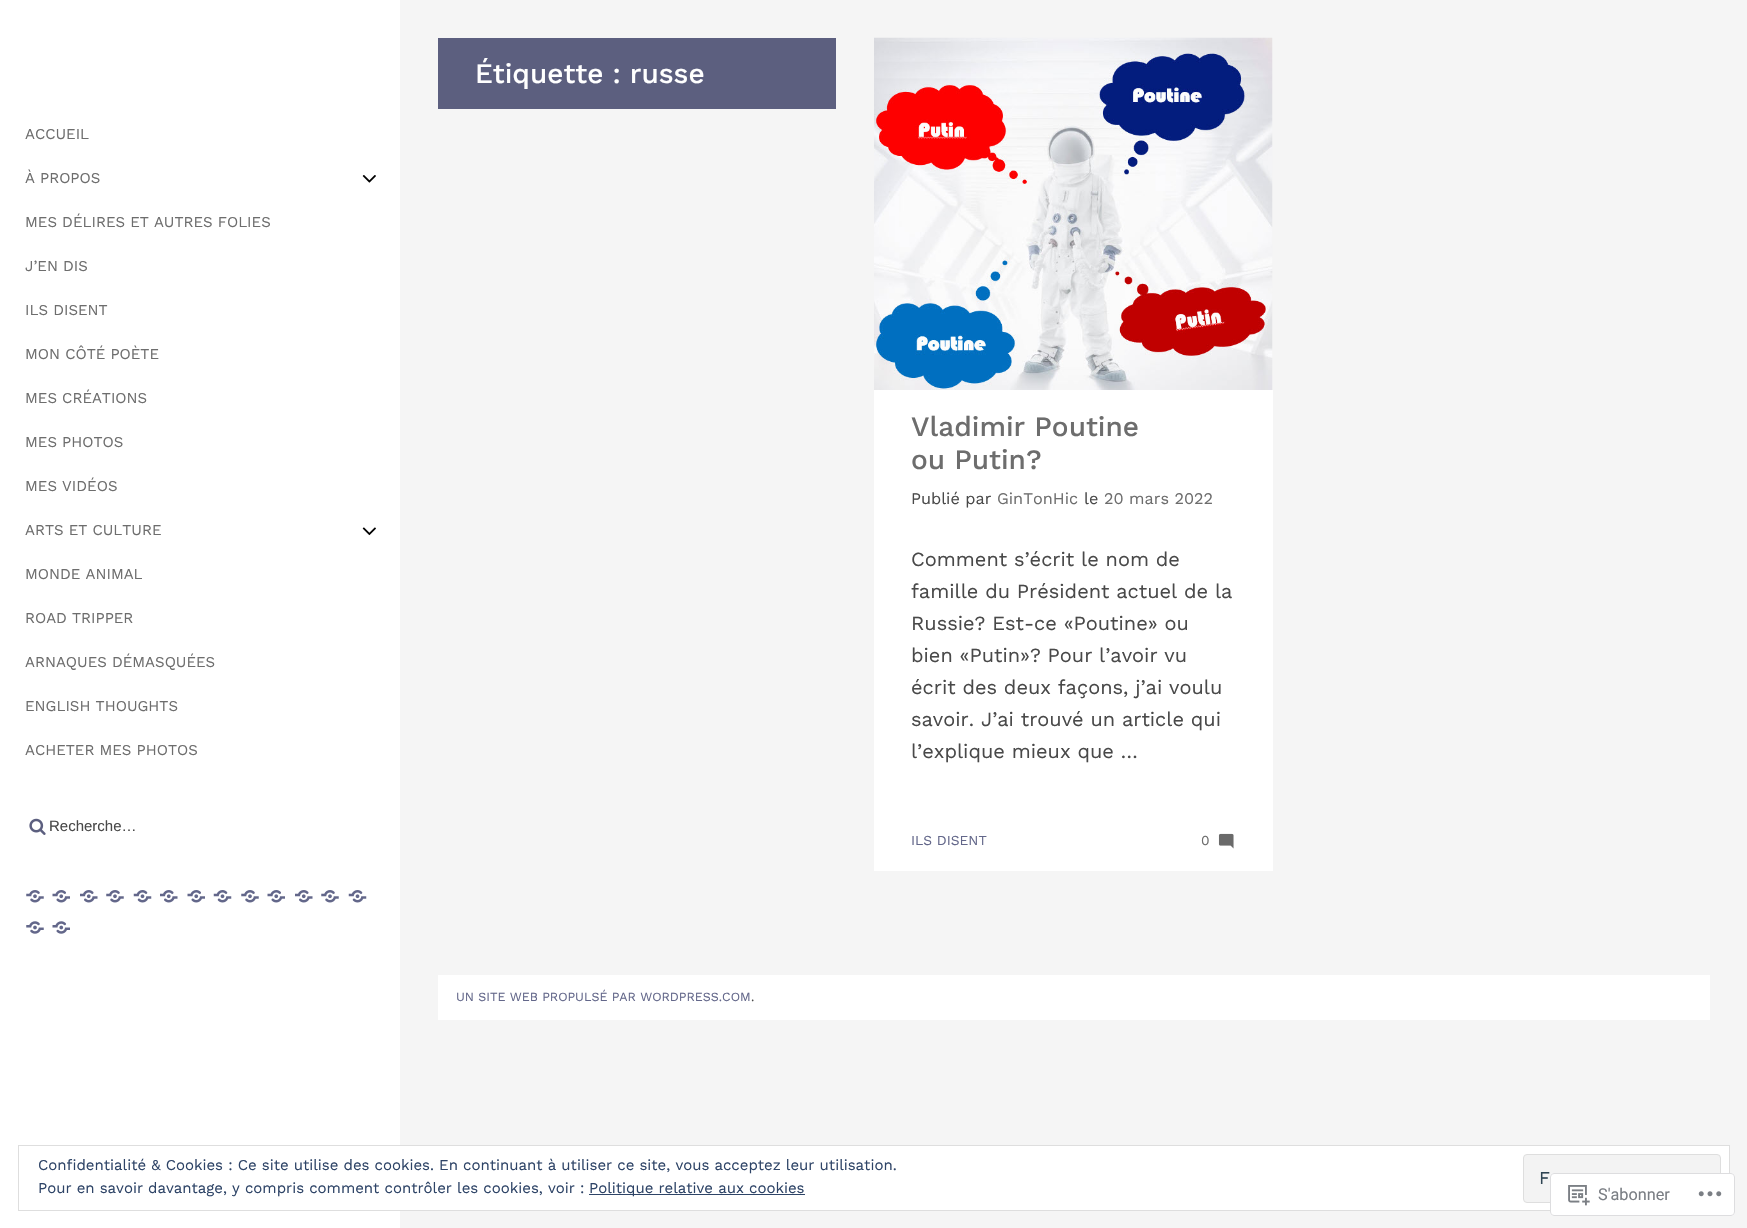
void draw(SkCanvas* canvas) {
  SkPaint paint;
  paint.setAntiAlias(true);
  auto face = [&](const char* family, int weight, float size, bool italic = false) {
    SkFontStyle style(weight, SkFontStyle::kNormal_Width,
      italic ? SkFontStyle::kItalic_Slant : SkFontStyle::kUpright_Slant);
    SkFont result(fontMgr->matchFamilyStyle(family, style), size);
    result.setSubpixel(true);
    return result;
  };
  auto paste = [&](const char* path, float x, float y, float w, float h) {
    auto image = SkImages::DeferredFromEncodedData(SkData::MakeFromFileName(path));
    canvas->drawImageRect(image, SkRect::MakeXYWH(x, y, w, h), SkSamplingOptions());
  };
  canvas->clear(0xfff5f5f5);
  paint.setColor(0xffffffff);
  canvas->drawRect(SkRect::MakeXYWH(0, 0, 400, 1228), paint);
  paste("img/1.png", 362, 175, 14, 8);
  paste("img/2.png", 362, 527, 14, 9);
  paste("img/3.png", 29, 818, 17, 17);
  paste("img/4.png", 26, 890, 18, 13);
  paste("img/5.png", 52, 890, 18, 13);
  paste("img/6.png", 80, 890, 18, 13);
  paste("img/4.png", 106, 890, 18, 13);
  paste("img/7.png", 133, 890, 19, 13);
  paste("img/6.png", 160, 890, 18, 13);
  paste("img/5.png", 187, 890, 18, 13);
  paste("img/7.png", 213, 890, 19, 13);
  paste("img/4.png", 241, 890, 18, 13);
  paste("img/5.png", 267, 890, 18, 13);
  paste("img/6.png", 295, 890, 18, 13);
  paste("img/4.png", 321, 890, 18, 13);
  paste("img/7.png", 348, 890, 19, 13);
  paste("img/8.png", 26, 921, 18, 13);
  paste("img/9.png", 52, 921, 18, 13);
  paint.setColor(0xff5c5f7f);
  canvas->drawRect(SkRect::MakeXYWH(438, 38, 398, 71), paint);
  paste("img/10.png", 874, 37, 399, 353);
  paint.setColor(0xffffffff);
  canvas->drawRect(SkRect::MakeXYWH(874, 390, 399, 481), paint);
  paste("img/11.png", 1218, 833, 16, 16);
  canvas->drawRect(SkRect::MakeXYWH(438, 975, 1272, 45), paint);
  canvas->drawRect(SkRect::MakeXYWH(400, 1146, 1329, 64), paint);
  paint.setStroke(true);
  paint.setStrokeWidth(1);
  paint.setColor(0xffdedede);
  canvas->drawRect(SkRect::MakeXYWH(18.5f, 1145.5f, 1711, 65), paint);
  paint.setStroke(false);
  paint.setColor(0xfff3f3f3);
  canvas->drawRoundRect(SkRect::MakeXYWH(1523.5f, 1154.5f, 197, 48), 3.5f, 3.5f, paint);
  paint.setStroke(true);
  paint.setColor(0xffdedede);
  canvas->drawRoundRect(SkRect::MakeXYWH(1523.5f, 1154.5f, 197, 48), 3.5f, 3.5f, paint);
  paint.setStroke(false);
  paint.setColor(0xff2e4467);
  canvas->drawRect(SkRect::MakeXYWH(589, 1194, 216, 1), paint);
  paint.setColor(0xfaffffff);
  canvas->drawRoundRect(SkRect::MakeXYWH(1550, 1173, 185, 43), 4, 4, paint);
  paint.setStroke(true);
  paint.setColor(0xfadcdcde);
  canvas->drawRoundRect(SkRect::MakeXYWH(1550.5f, 1173.5f, 184, 42), 3.5f, 3.5f, paint);
  paste("img/12.png", 1568, 1185, 22, 21);
  paste("img/13.png", 1698, 1191, 24, 6);
  auto f0 = face("Work Sans", 400, 15);
  paint.setStroke(false);
  paint.setColor(0xff6d6d6d);
  {
    const struct { const char* s; float x, y; } items[] = {
      {"ACCUEIL", 25, 139},
      {"À PROPOS", 25, 183},
      {"MES DÉLIRES ET AUTRES FOLIES", 25, 227},
      {"J’EN DIS", 25, 271},
      {"ILS DISENT", 25, 315},
      {"MON CÔTÉ POÈTE", 25, 359},
      {"MES CRÉATIONS", 25, 403},
      {"MES PHOTOS", 25, 447},
      {"MES VIDÉOS", 25, 491},
      {"ARTS ET CULTURE", 25, 535},
      {"MONDE ANIMAL", 25, 579},
      {"ROAD TRIPPER", 25, 623},
      {"ARNAQUES DÉMASQUÉES", 25, 667},
      {"ENGLISH THOUGHTS", 25, 711},
      {"ACHETER MES PHOTOS", 25, 755},
    };
    for (auto [s, x, y] : items) {
      canvas->drawString(s, x, y, f0, paint);
    }
  }
  auto f1 = face("Liberation Sans", 400, 15);
  paint.setColor(0xff494949);
  canvas->drawString("Recherche…", 49, 831, f1, paint);
  auto f2 = face("Work Sans", 500, 28);
  paint.setColor(0xffffffff);
  canvas->drawString("Étiquette : russe", 475, 83, f2, paint);
  paint.setColor(0xff6d6d6d);
  canvas->drawString("Vladimir Poutine", 911, 436, f2, paint);
  canvas->drawString("ou Putin?", 911, 469, f2, paint);
  auto f3 = face("Work Sans", 400, 16.25f);
  paint.setColor(0xff494949);
  canvas->drawString("Publié par", 911, 504, f3, paint);
  paint.setColor(0xff6d6d6d);
  canvas->drawString("GinTonHic", 997, 504, f3, paint);
  paint.setColor(0xff494949);
  canvas->drawString("le", 1084, 504, f3, paint);
  paint.setColor(0xff6d6d6d);
  canvas->drawString("20 mars 2022", 1104, 504, f3, paint);
  auto f4 = face("Work Sans", 400, 20);
  paint.setColor(0xff494949);
  {
    const struct { const char* s; float x, y; } items[] = {
      {"Comment s’écrit le nom de", 911, 566},
      {"famille du Président actuel de la", 911, 598},
      {"Russie? Est-ce «Poutine» ou", 911, 630},
      {"bien «Putin»? Pour l’avoir vu", 911, 662},
      {"écrit des deux façons, j’ai voulu", 911, 694},
      {"savoir. J’ai trouvé un article qui", 911, 726},
      {"l’explique mieux que …", 911, 758},
    };
    for (auto [s, x, y] : items) {
      canvas->drawString(s, x, y, f4, paint);
    }
  }
  auto f5 = face("Work Sans", 400, 13.75f);
  paint.setColor(0xff63678a);
  canvas->drawString("ILS DISENT", 911, 845, f5, paint);
  paint.setColor(0xff6d6d6d);
  canvas->drawString("0", 1201, 845, f5, paint);
  auto f6 = face("Work Sans", 400, 12.5f);
  paint.setColor(0xff63678a);
  canvas->drawString("UN SITE WEB PROPULSÉ PAR WORDPRESS.COM", 456, 1001, f6, paint);
  paint.setColor(0xff494949);
  canvas->drawString(".", 751, 1001, f6, paint);
  paint.setColor(0xff2e4467);
  canvas->drawString("Confidentialité & Cookies : Ce site utilise des cookies. En continuant à utiliser ce site, vous acceptez leur utilisation.", 38, 1170, f0, paint);
  auto f7 = face("Work Sans", 400, 18);
  paint.setColor(0xff2e4453);
  canvas->drawString("F", 1539, 1184, f7, paint);
  paint.setColor(0xff2e4467);
  canvas->drawString("Pour en savoir davantage, y compris comment contrôler les cookies, voir :", 38, 1193, f0, paint);
  canvas->drawString("Politique relative aux cookies", 589, 1193, f0, paint);
  auto f8 = face("Roboto", 400, 16.25f);
  paint.setColor(0xff7a7e84);
  canvas->drawString("S'abonner", 1598, 1200, f8, paint);
}
